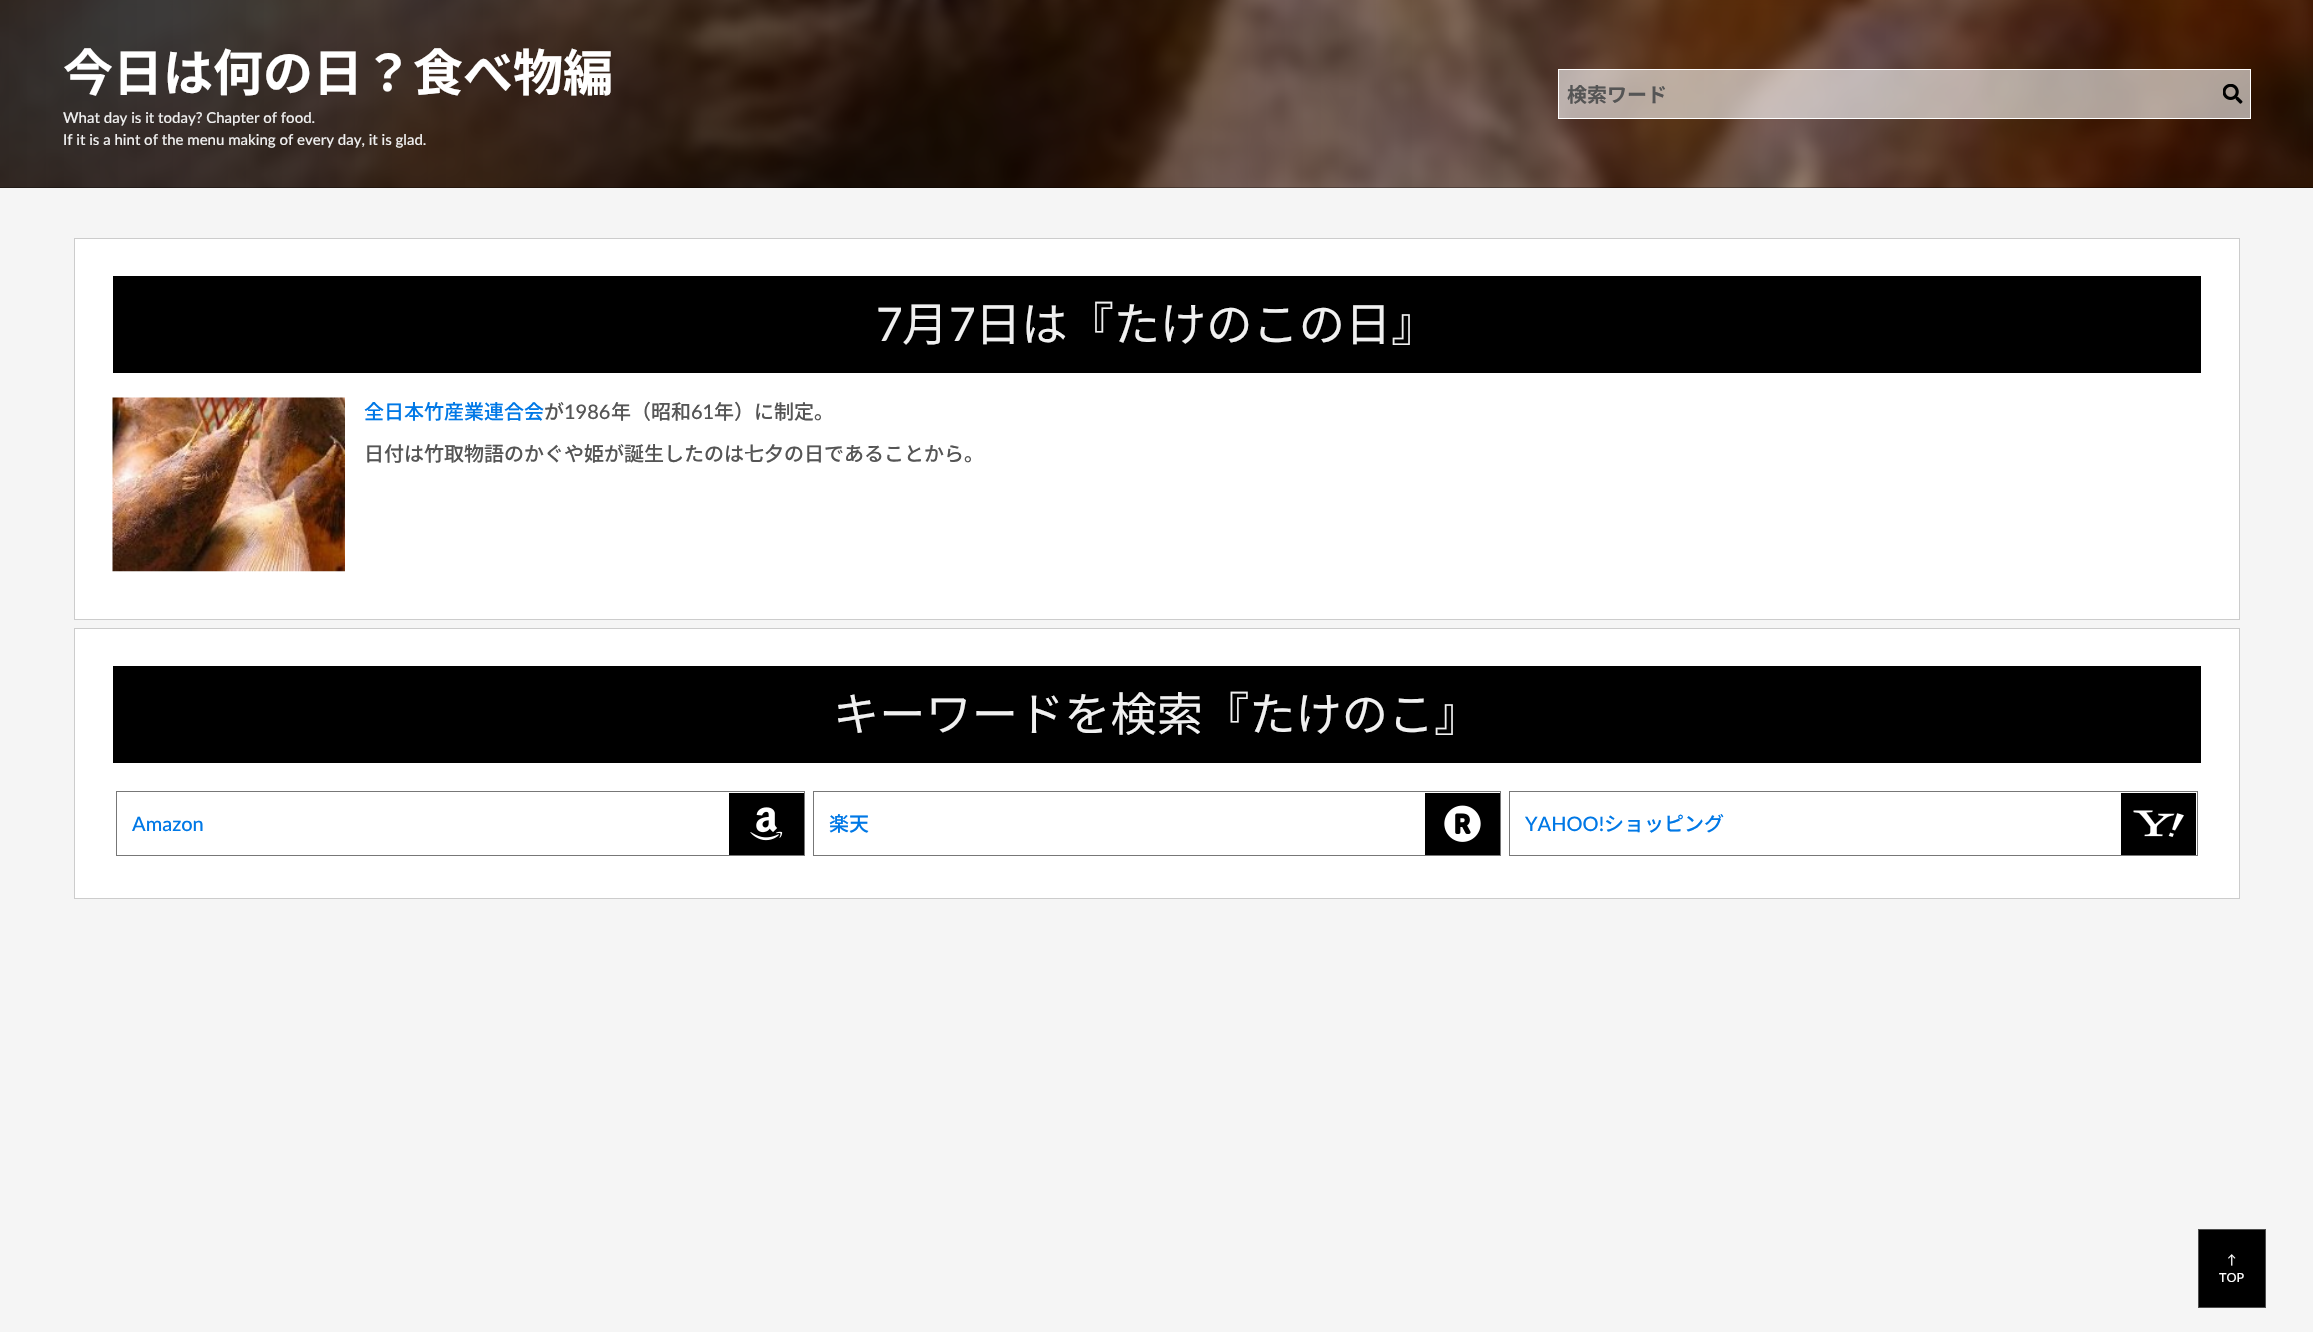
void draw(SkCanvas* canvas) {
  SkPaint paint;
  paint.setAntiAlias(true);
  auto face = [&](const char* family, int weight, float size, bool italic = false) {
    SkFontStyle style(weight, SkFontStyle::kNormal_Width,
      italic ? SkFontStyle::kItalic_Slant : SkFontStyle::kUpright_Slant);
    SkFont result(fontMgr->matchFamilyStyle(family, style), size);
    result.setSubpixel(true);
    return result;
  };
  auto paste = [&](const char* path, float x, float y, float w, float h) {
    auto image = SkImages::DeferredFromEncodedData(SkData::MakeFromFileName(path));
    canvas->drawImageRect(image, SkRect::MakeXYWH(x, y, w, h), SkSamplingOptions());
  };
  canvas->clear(0xff000000);
  paste("img/1.png", 0, 0, 2313, 188);
  paste("img/2.png", 0, 0, 2313, 188);
  {
    const SkColor colors[] = {0xcc000000, 0x4d000000};
    const float stops[] = {0, 1};
    const SkPoint ends[] = {{0, 99}, {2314, 99}};
    paint.setShader(SkGradientShader::MakeLinear(ends, colors, stops, 2, SkTileMode::kClamp));
    paint.setAlpha(255);
  }
  canvas->drawRect(SkRect::MakeXYWH(0, 0, 2313, 188), paint);
  paint.setShader(nullptr);
  paint.setColor(0x99ffffff);
  canvas->drawRect(SkRect::MakeXYWH(1558.5f, 69.5f, 692, 49), paint);
  paint.setStroke(true);
  paint.setStrokeWidth(1);
  paint.setColor(0xffffffff);
  canvas->drawRect(SkRect::MakeXYWH(1558.5f, 69.5f, 692, 49), paint);
  paste("img/3.png", 2223, 84, 20, 20);
  paint.setStroke(false);
  {
    const struct { float x, y, w, h; SkColor color; } items[] = {
      {0, 188, 2313, 1144, 0xfff5f5f5},
      {75, 239, 2164, 380, 0xffffffff},
      {113, 276, 2088, 97, 0xff000000},
    };
    for (auto [x, y, w, h, color] : items) {
      paint.setColor(color);
      canvas->drawRect(SkRect::MakeXYWH(x, y, w, h), paint);
    }
  }
  paste("img/4.png", 112, 397, 233, 175);
  paint.setStroke(true);
  paint.setColor(0xffcccccc);
  canvas->drawRect(SkRect::MakeXYWH(74.5f, 238.5f, 2165, 381), paint);
  paint.setStroke(false);
  paint.setColor(0xffffffff);
  canvas->drawRect(SkRect::MakeXYWH(75, 629, 2164, 269), paint);
  paint.setColor(0xff000000);
  canvas->drawRect(SkRect::MakeXYWH(113, 666, 2088, 97), paint);
  paint.setStroke(true);
  paint.setColor(0xff777777);
  canvas->drawRect(SkRect::MakeXYWH(116.5f, 791.5f, 688, 64), paint);
  canvas->drawRect(SkRect::MakeXYWH(813.5f, 791.5f, 687, 64), paint);
  canvas->drawRect(SkRect::MakeXYWH(1509.5f, 791.5f, 688, 64), paint);
  paint.setColor(0xffcccccc);
  canvas->drawRect(SkRect::MakeXYWH(74.5f, 628.5f, 2165, 270), paint);
  paint.setStroke(false);
  paint.setColor(0xff000000);
  canvas->drawRect(SkRect::MakeXYWH(729, 793, 75, 62), paint);
  paste("img/5.png", 750, 807, 33, 34);
  canvas->drawRect(SkRect::MakeXYWH(1425, 793, 75, 62), paint);
  paste("img/6.png", 1444, 805, 37, 37);
  canvas->drawRect(SkRect::MakeXYWH(2121, 793, 75, 62), paint);
  paste("img/7.png", 2133, 810, 51, 27);
  canvas->drawRect(SkRect::MakeXYWH(2198.5f, 1229.5f, 67, 78), paint);
  paint.setStroke(true);
  paint.setColor(0xff4d4d4d);
  canvas->drawRect(SkRect::MakeXYWH(2198.5f, 1229.5f, 67, 78), paint);
  auto f0 = face("Noto Sans JP", 700, 50);
  paint.setStroke(false);
  paint.setColor(0xffffffff);
  canvas->drawString("今日は何の日？食べ物編", 63, 91, f0, paint);
  auto f1 = face("Noto Sans JP", 700, 20);
  paint.setColor(0xff555555);
  canvas->drawString("検索ワード", 1567, 102, f1, paint);
  auto f2 = face("Lato", 500, 15);
  paint.setColor(0xfff0f0f0);
  canvas->drawString("What day is it today? Chapter of food.", 63, 123, f2, paint);
  canvas->drawString("If it is a hint of the menu making of every day, it is glad.", 63, 145, f2, paint);
  auto f3 = face("Lato", 400, 46.25f);
  canvas->drawString("7", 876, 341, f3, paint);
  auto f4 = face("Noto Sans JP", 400, 46.25f);
  canvas->drawString("月", 902, 341, f4, paint);
  canvas->drawString("7", 949, 341, f3, paint);
  canvas->drawString("日は『たけのこの日』", 975, 341, f4, paint);
  auto f5 = face("Noto Sans JP", 500, 20);
  paint.setColor(0xff0078e6);
  canvas->drawString("全日本竹産業連合会", 364, 419, f5, paint);
  paint.setColor(0xff555555);
  canvas->drawString("が", 544, 419, f5, paint);
  auto f6 = face("Lato", 500, 20);
  canvas->drawString("1986", 564, 419, f6, paint);
  canvas->drawString("年（昭和", 611, 419, f5, paint);
  canvas->drawString("61", 691, 419, f6, paint);
  canvas->drawString("年）に制定。", 714, 419, f5, paint);
  canvas->drawString("日付は竹取物語のかぐや姫が誕生したのは七夕の日であることから。", 364, 461, f5, paint);
  paint.setColor(0xfff0f0f0);
  canvas->drawString("キーワードを検索『たけのこ』", 833, 731, f4, paint);
  paint.setColor(0xff0078e6);
  canvas->drawString("Amazon", 132, 831, f6, paint);
  canvas->drawString("楽天", 829, 831, f5, paint);
  canvas->drawString("YAHOO!", 1525, 831, f6, paint);
  canvas->drawString("ショッピング", 1604, 831, f5, paint);
  auto f7 = face("Lato", 500, 12.5f);
  paint.setColor(0xffffffff);
  canvas->drawString("↑", 2227, 1264, f7, paint);
  canvas->drawString("TOP", 2219, 1282, f7, paint);
}
